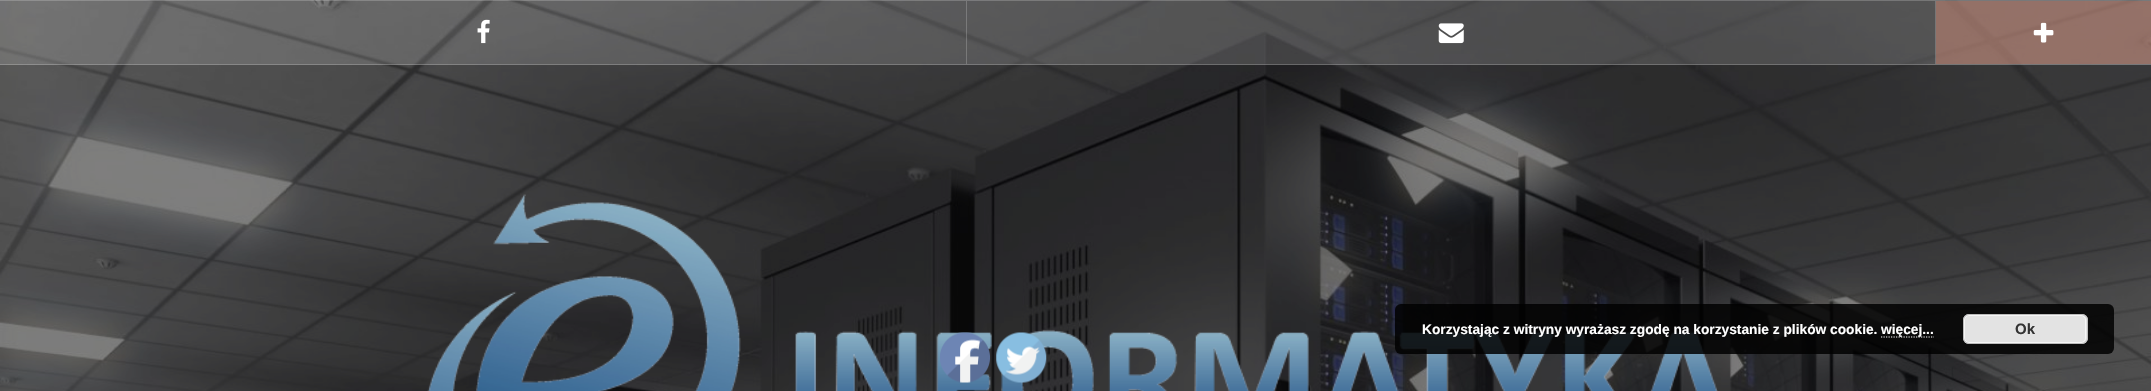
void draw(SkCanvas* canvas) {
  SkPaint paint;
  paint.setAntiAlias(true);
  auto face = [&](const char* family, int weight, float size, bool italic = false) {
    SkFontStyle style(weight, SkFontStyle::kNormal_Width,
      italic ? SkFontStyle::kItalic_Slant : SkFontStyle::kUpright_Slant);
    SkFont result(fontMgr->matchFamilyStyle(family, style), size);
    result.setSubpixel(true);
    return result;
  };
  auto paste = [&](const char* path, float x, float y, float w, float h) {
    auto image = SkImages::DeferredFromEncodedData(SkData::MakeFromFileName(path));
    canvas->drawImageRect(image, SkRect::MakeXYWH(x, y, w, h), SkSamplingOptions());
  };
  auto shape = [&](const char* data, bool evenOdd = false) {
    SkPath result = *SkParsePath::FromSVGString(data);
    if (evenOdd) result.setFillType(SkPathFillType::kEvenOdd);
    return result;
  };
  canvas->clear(0xffffffff);
  paste("img/1.png", 0, 0, 2151, 391);
  {
    const struct { float x, y, w, h; SkColor color; } items[] = {
      {0, 0, 2151, 65, 0x26ffffff},
      {0, 0, 2151, 1, 0x33ffffff},
      {0, 64, 2151, 1, 0x33ffffff},
      {966, 1, 1, 63, 0x33ffffff},
    };
    for (auto [x, y, w, h, color] : items) {
      paint.setColor(color);
      canvas->drawRect(SkRect::MakeXYWH(x, y, w, h), paint);
    }
  }
  paste("img/2.png", 477, 19, 13, 25);
  canvas->drawRect(SkRect::MakeXYWH(1935, 1, 1, 63), paint);
  paste("img/3.png", 1438, 23, 26, 21);
  paint.setColor(0x66ef997f);
  canvas->drawRect(SkRect::MakeXYWH(1936, 1, 215, 63), paint);
  paste("img/4.png", 2033, 22, 21, 21);
  paste("img/5.png", 427, 194, 1291, 197);
  paint.setColor(0xd9000000);
  canvas->drawRoundRect(SkRect::MakeXYWH(1395, 304, 719, 50), 6, 6, paint);
  paint.setStroke(true);
  paint.setStrokeWidth(1.2f);
  paint.setColor(0xffffffff);
  paint.setPathEffect(SkDashPathEffect::Make({{1.25f, 1.25f}}, 0));
  canvas->drawPath(shape("M1881 337H1934"), paint);
  paint.setPathEffect(nullptr);
  paint.setStroke(false);
  paint.setColor(0xffe3e3e3);
  canvas->drawRoundRect(SkRect::MakeXYWH(1963, 314, 125, 30), 6, 6, paint);
  paint.setStroke(true);
  paint.setStrokeWidth(1);
  paint.setColor(0xfff6f6f6);
  canvas->drawRoundRect(SkRect::MakeXYWH(1964.5f, 315.5f, 121, 27), 4.5f, 4.5f, paint);
  paint.setColor(0xffbbbbbb);
  canvas->drawRoundRect(SkRect::MakeXYWH(1963.5f, 314.5f, 124, 29), 5.5f, 5.5f, paint);
  paste("img/6.png", 940, 332, 50, 51);
  paste("img/7.png", 996, 332, 51, 51);
  auto f0 = face("Liberation Sans", 700, 13.75f);
  paint.setStroke(false);
  paint.setColor(0xffffffff);
  canvas->drawString("Korzystając z witryny wyrażasz zgodę na korzystanie z plików cookie.", 1422, 334, f0, paint);
  canvas->drawString("więcej...", 1881, 334, f0, paint);
  auto f1 = face("Liberation Sans", 700, 15);
  paint.setColor(0xff333333);
  canvas->drawString("Ok", 2015, 334, f1, paint);
}
